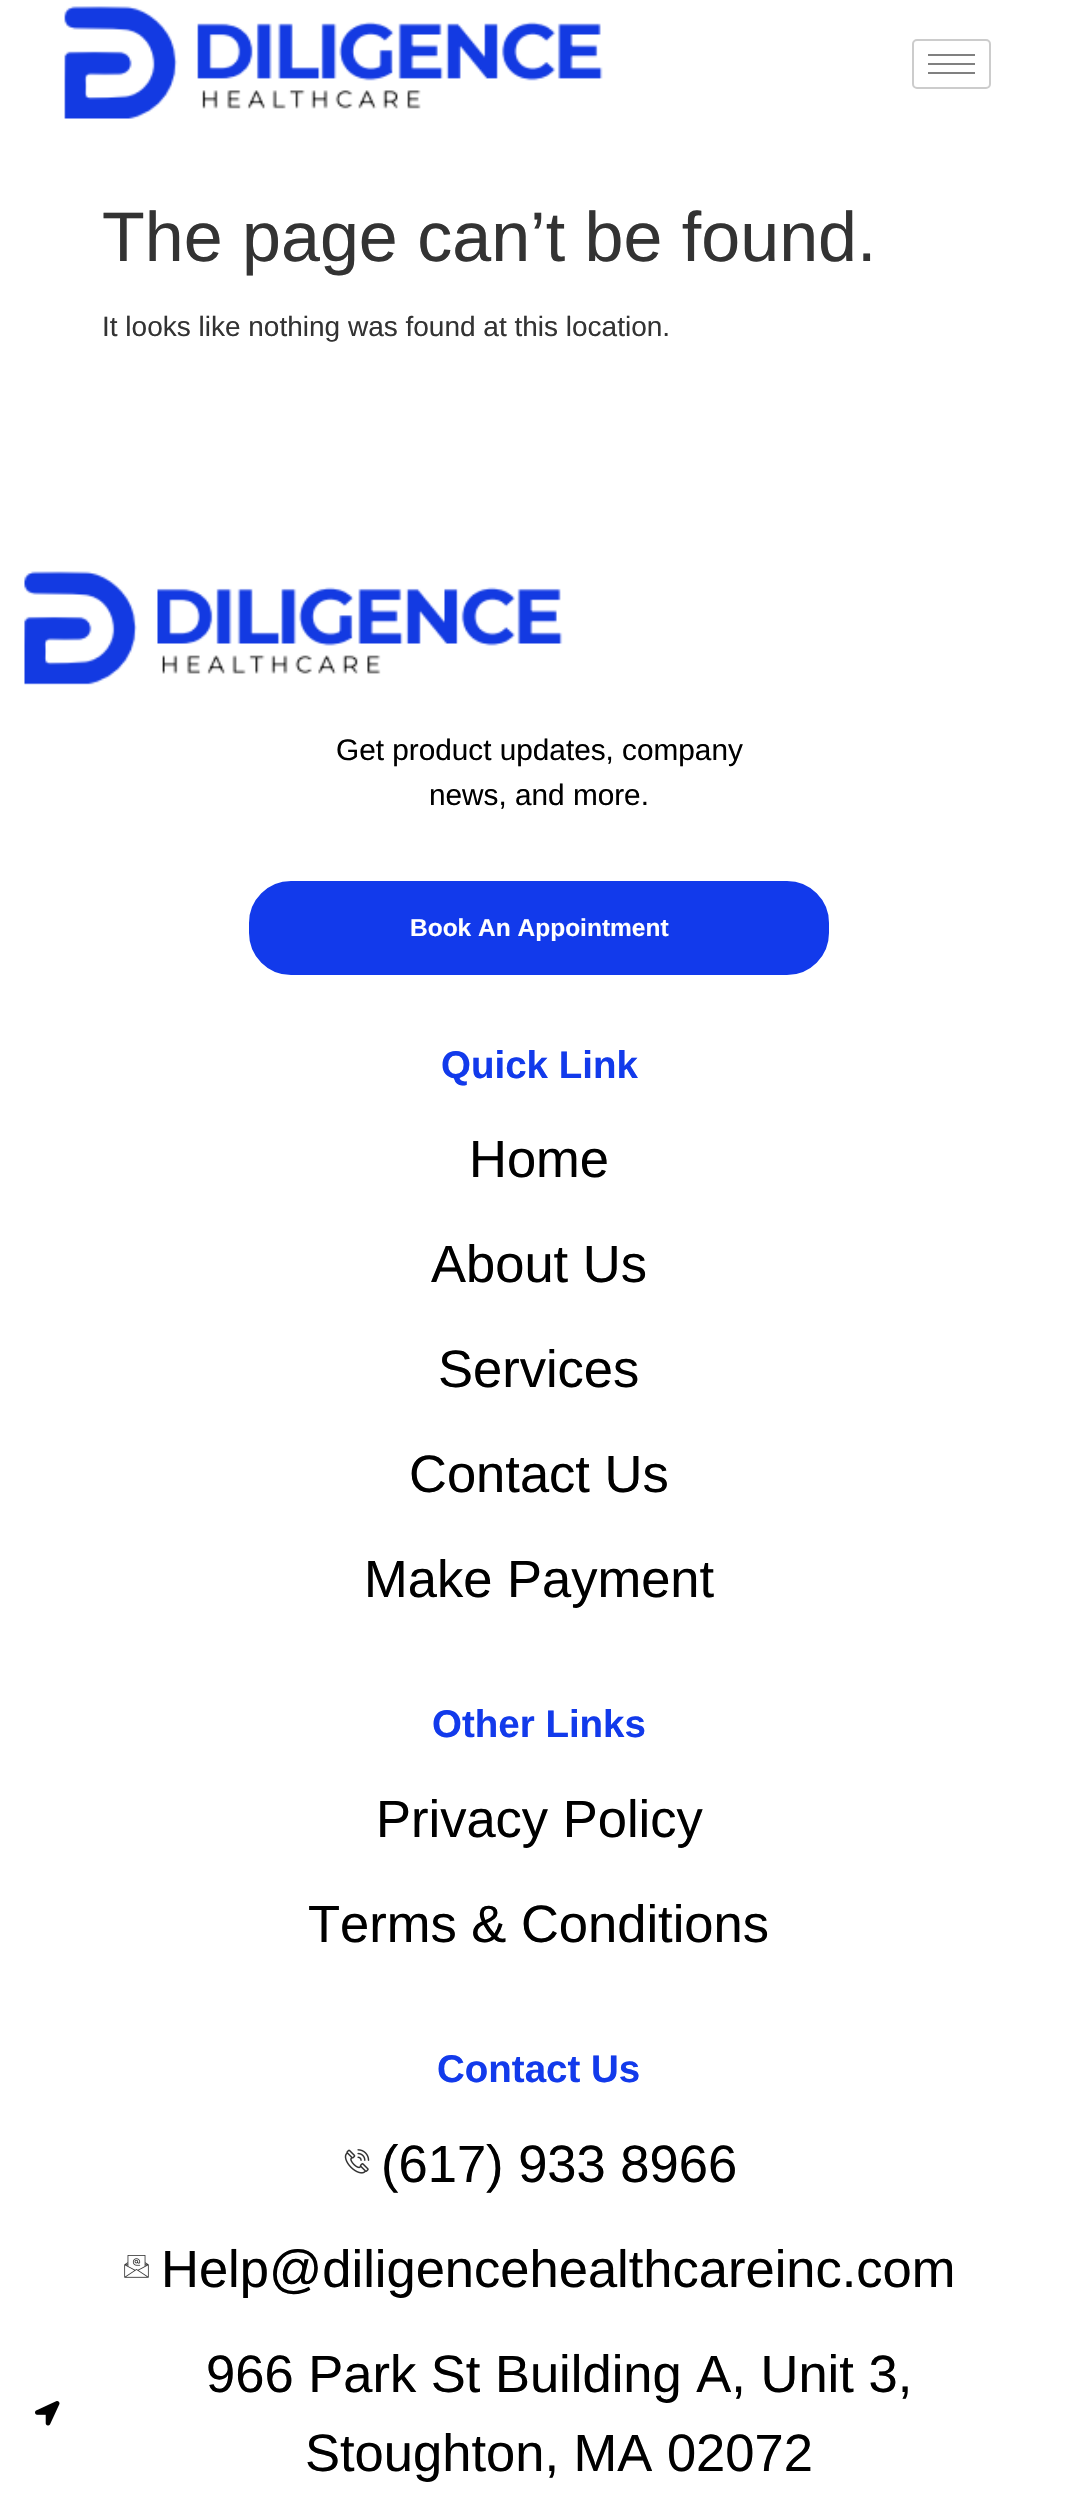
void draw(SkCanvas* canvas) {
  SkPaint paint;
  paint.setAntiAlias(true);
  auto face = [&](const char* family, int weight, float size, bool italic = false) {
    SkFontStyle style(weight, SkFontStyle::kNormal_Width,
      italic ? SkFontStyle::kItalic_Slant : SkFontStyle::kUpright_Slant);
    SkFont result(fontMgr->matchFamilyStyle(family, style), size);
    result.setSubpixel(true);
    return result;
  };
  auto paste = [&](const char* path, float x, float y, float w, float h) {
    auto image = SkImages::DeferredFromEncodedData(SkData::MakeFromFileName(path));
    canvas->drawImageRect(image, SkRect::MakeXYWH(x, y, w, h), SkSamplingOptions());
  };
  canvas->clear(0xffffffff);
  paste("img/1.png", 64, 6, 539, 113);
  paint.setStroke(true);
  paint.setStrokeWidth(2);
  paint.setColor(0xffcccccc);
  canvas->drawRoundRect(SkRect::MakeXYWH(913, 40, 77, 48), 4, 4, paint);
  paint.setStroke(false);
  {
    const struct { float x, y, w, h; SkColor color; } items[] = {
      {928, 54, 47, 2, 0xff808080},
      {928, 63, 47, 2, 0xff808080},
      {928, 72, 47, 2, 0xff808080},
    };
    for (auto [x, y, w, h, color] : items) {
      paint.setColor(color);
      canvas->drawRect(SkRect::MakeXYWH(x, y, w, h), paint);
    }
  }
  paste("img/2.png", 24, 571, 539, 114);
  paint.setColor(0xff123aeb);
  canvas->drawRoundRect(SkRect::MakeXYWH(248, 880, 582, 96), 43, 43, paint);
  paint.setStroke(true);
  paint.setColor(0xffffffff);
  canvas->drawRoundRect(SkRect::MakeXYWH(248, 880, 582, 96), 43, 43, paint);
  paste("img/3.png", 344, 2149, 26, 25);
  paste("img/4.png", 124, 2255, 25, 23);
  paste("img/5.png", 35, 2401, 25, 25);
  auto f0 = face("Liberation Sans", 400, 70);
  paint.setStroke(false);
  paint.setColor(0xff333333);
  canvas->drawString("The page can’t be found.", 102, 261, f0, paint);
  auto f1 = face("Liberation Sans", 400, 28);
  canvas->drawString("It looks like nothing was found at this location.", 102, 336, f1, paint);
  auto f2 = face("Liberation Sans", 400, 29.75f);
  paint.setColor(0xff000000);
  canvas->drawString("Get product updates, company", 336, 760, f2, paint);
  canvas->drawString("news, and more.", 429, 805, f2, paint);
  auto f3 = face("Liberation Sans", 700, 24.5f);
  paint.setColor(0xffffffff);
  canvas->drawString("Book An Appointment", 410, 936, f3, paint);
  auto f4 = face("Liberation Sans", 700, 38.5f);
  paint.setColor(0xff123aeb);
  canvas->drawString("Quick Link", 441, 1078, f4, paint);
  auto f5 = face("Liberation Sans", 400, 52.5f);
  paint.setColor(0xff000000);
  {
    const struct { const char* s; float x, y; } items[] = {
      {"Home", 469, 1177},
      {"About Us", 431, 1282},
      {"Services", 438, 1387},
      {"Contact Us", 409, 1492},
      {"Make Payment", 364, 1597},
    };
    for (auto [s, x, y] : items) {
      canvas->drawString(s, x, y, f5, paint);
    }
  }
  paint.setColor(0xff123aeb);
  canvas->drawString("Other Links", 432, 1737, f4, paint);
  paint.setColor(0xff000000);
  canvas->drawString("Privacy Policy", 376, 1837, f5, paint);
  canvas->drawString("Terms & Conditions", 308, 1942, f5, paint);
  paint.setColor(0xff123aeb);
  canvas->drawString("Contact Us", 437, 2082, f4, paint);
  paint.setColor(0xff000000);
  {
    const struct { const char* s; float x, y; } items[] = {
      {"(617) 933 8966", 381, 2182},
      {"Help@diligencehealthcareinc.com", 161, 2287},
      {"966 Park St Building A, Unit 3,", 206, 2392},
      {"Stoughton, MA 02072", 305, 2471},
    };
    for (auto [s, x, y] : items) {
      canvas->drawString(s, x, y, f5, paint);
    }
  }
}
